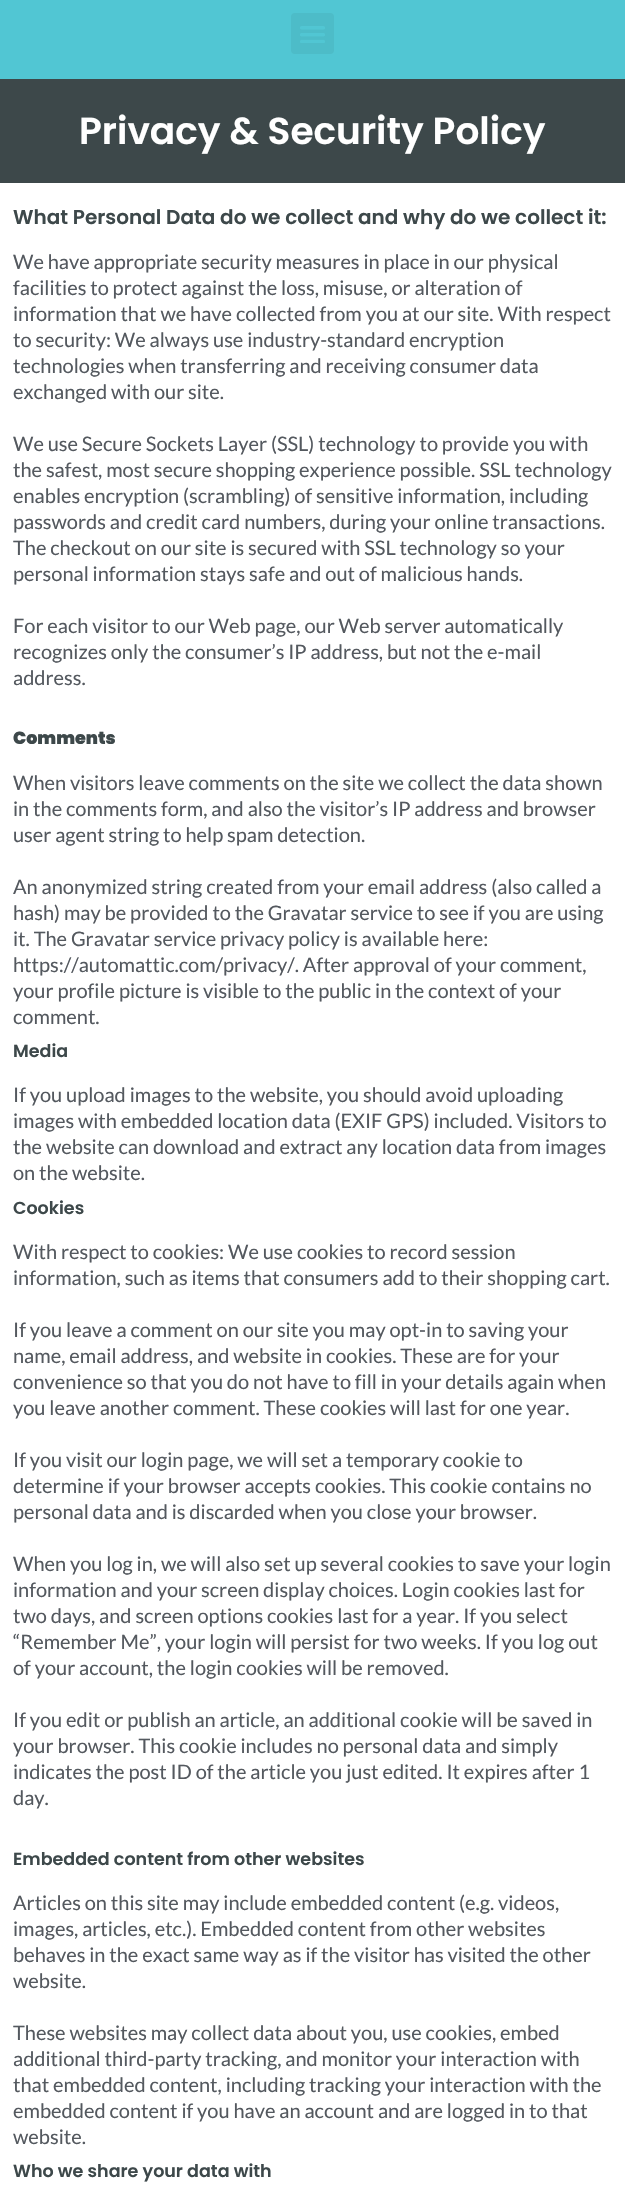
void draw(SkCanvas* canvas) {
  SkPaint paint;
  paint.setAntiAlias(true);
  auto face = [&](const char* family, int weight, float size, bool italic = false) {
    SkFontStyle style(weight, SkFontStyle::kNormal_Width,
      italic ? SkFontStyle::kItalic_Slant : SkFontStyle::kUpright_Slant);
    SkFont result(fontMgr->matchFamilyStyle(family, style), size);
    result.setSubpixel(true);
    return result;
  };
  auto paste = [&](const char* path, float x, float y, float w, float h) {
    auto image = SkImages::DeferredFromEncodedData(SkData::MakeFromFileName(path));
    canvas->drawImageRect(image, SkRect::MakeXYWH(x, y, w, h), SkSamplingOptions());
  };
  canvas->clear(0xffffffff);
  paint.setColor(0xff51c6d3);
  canvas->drawRect(SkRect::MakeXYWH(0, 0, 625, 79), paint);
  paint.setColor(0xff4dbcc8);
  canvas->drawRoundRect(SkRect::MakeXYWH(291, 13, 43, 41), 4, 4, paint);
  paste("img/1.png", 300, 26, 25, 17);
  paint.setColor(0xff3d484a);
  canvas->drawRect(SkRect::MakeXYWH(0, 79, 625, 104), paint);
  auto f0 = face("Poppins", 600, 37.5f);
  paint.setColor(0xffffffff);
  canvas->drawString("Privacy & Security Policy", 79, 144, f0, paint);
  auto f1 = face("Poppins", 600, 20);
  paint.setColor(0xff3d484a);
  canvas->drawString("What Personal Data do we collect and why do we collect it:", 13, 224, f1, paint);
  auto f2 = face("Lato", 400, 20);
  paint.setColor(0xff54595f);
  {
    const struct { const char* s; float x, y; } items[] = {
      {"We have appropriate security measures in place in our physical", 13, 269},
      {"facilities to protect against the loss, misuse, or alteration of", 13, 295},
      {"information that we have collected from you at our site. With respect", 13, 321},
      {"to security: We always use industry-standard encryption", 13, 347},
      {"technologies when transferring and receiving consumer data", 13, 373},
      {"exchanged with our site.", 13, 399},
      {"We use Secure Sockets Layer (SSL) technology to provide you with", 13, 451},
      {"the safest, most secure shopping experience possible. SSL technology", 13, 477},
      {"enables encryption (scrambling) of sensitive information, including", 13, 503},
      {"passwords and credit card numbers, during your online transactions.", 13, 529},
      {"The checkout on our site is secured with SSL technology so your", 13, 555},
      {"personal information stays safe and out of malicious hands.", 13, 581},
      {"For each visitor to our Web page, our Web server automatically", 13, 633},
      {"recognizes only the consumer’s IP address, but not the e-mail", 13, 659},
      {"address.", 13, 685},
    };
    for (auto [s, x, y] : items) {
      canvas->drawString(s, x, y, f2, paint);
    }
  }
  auto f3 = face("Poppins", 900, 17.5f);
  paint.setColor(0xff3d484a);
  canvas->drawString("Comments", 13, 744, f3, paint);
  paint.setColor(0xff54595f);
  {
    const struct { const char* s; float x, y; } items[] = {
      {"When visitors leave comments on the site we collect the data shown", 13, 790},
      {"in the comments form, and also the visitor’s IP address and browser", 13, 816},
      {"user agent string to help spam detection.", 13, 842},
      {"An anonymized string created from your email address (also called a", 13, 894},
      {"hash) may be provided to the Gravatar service to see if you are using", 13, 920},
      {"it. The Gravatar service privacy policy is available here:", 13, 946},
      {"https://automattic.com/privacy/. After approval of your comment,", 13, 972},
      {"your profile picture is visible to the public in the context of your", 13, 998},
      {"comment.", 13, 1024},
    };
    for (auto [s, x, y] : items) {
      canvas->drawString(s, x, y, f2, paint);
    }
  }
  auto f4 = face("Poppins", 600, 17.5f);
  paint.setColor(0xff3d484a);
  canvas->drawString("Media", 13, 1057, f4, paint);
  paint.setColor(0xff54595f);
  {
    const struct { const char* s; float x, y; } items[] = {
      {"If you upload images to the website, you should avoid uploading", 13, 1102},
      {"images with embedded location data (EXIF GPS) included. Visitors to", 13, 1128},
      {"the website can download and extract any location data from images", 13, 1154},
      {"on the website.", 13, 1180},
    };
    for (auto [s, x, y] : items) {
      canvas->drawString(s, x, y, f2, paint);
    }
  }
  paint.setColor(0xff3d484a);
  canvas->drawString("Cookies", 13, 1214, f4, paint);
  paint.setColor(0xff54595f);
  {
    const struct { const char* s; float x, y; } items[] = {
      {"With respect to cookies: We use cookies to record session", 13, 1259},
      {"information, such as items that consumers add to their shopping cart.", 13, 1285},
      {"If you leave a comment on our site you may opt-in to saving your", 13, 1337},
      {"name, email address, and website in cookies. These are for your", 13, 1363},
      {"convenience so that you do not have to fill in your details again when", 13, 1389},
      {"you leave another comment. These cookies will last for one year.", 13, 1415},
      {"If you visit our login page, we will set a temporary cookie to", 13, 1467},
      {"determine if your browser accepts cookies. This cookie contains no", 13, 1493},
      {"personal data and is discarded when you close your browser.", 13, 1519},
      {"When you log in, we will also set up several cookies to save your login", 13, 1571},
      {"information and your screen display choices. Login cookies last for", 13, 1597},
      {"two days, and screen options cookies last for a year. If you select", 13, 1623},
      {"“Remember Me”, your login will persist for two weeks. If you log out", 13, 1649},
      {"of your account, the login cookies will be removed.", 13, 1675},
      {"If you edit or publish an article, an additional cookie will be saved in", 13, 1727},
      {"your browser. This cookie includes no personal data and simply", 13, 1753},
      {"indicates the post ID of the article you just edited. It expires after 1", 13, 1779},
      {"day.", 13, 1805},
    };
    for (auto [s, x, y] : items) {
      canvas->drawString(s, x, y, f2, paint);
    }
  }
  paint.setColor(0xff3d484a);
  canvas->drawString("Embedded content from other websites", 13, 1865, f4, paint);
  paint.setColor(0xff54595f);
  {
    const struct { const char* s; float x, y; } items[] = {
      {"Articles on this site may include embedded content (e.g. videos,", 13, 1910},
      {"images, articles, etc.). Embedded content from other websites", 13, 1936},
      {"behaves in the exact same way as if the visitor has visited the other", 13, 1962},
      {"website.", 13, 1988},
      {"These websites may collect data about you, use cookies, embed", 13, 2040},
      {"additional third-party tracking, and monitor your interaction with", 13, 2066},
      {"that embedded content, including tracking your interaction with the", 13, 2092},
      {"embedded content if you have an account and are logged in to that", 13, 2118},
      {"website.", 13, 2144},
    };
    for (auto [s, x, y] : items) {
      canvas->drawString(s, x, y, f2, paint);
    }
  }
  paint.setColor(0xff3d484a);
  canvas->drawString("Who we share your data with", 13, 2177, f4, paint);
}
